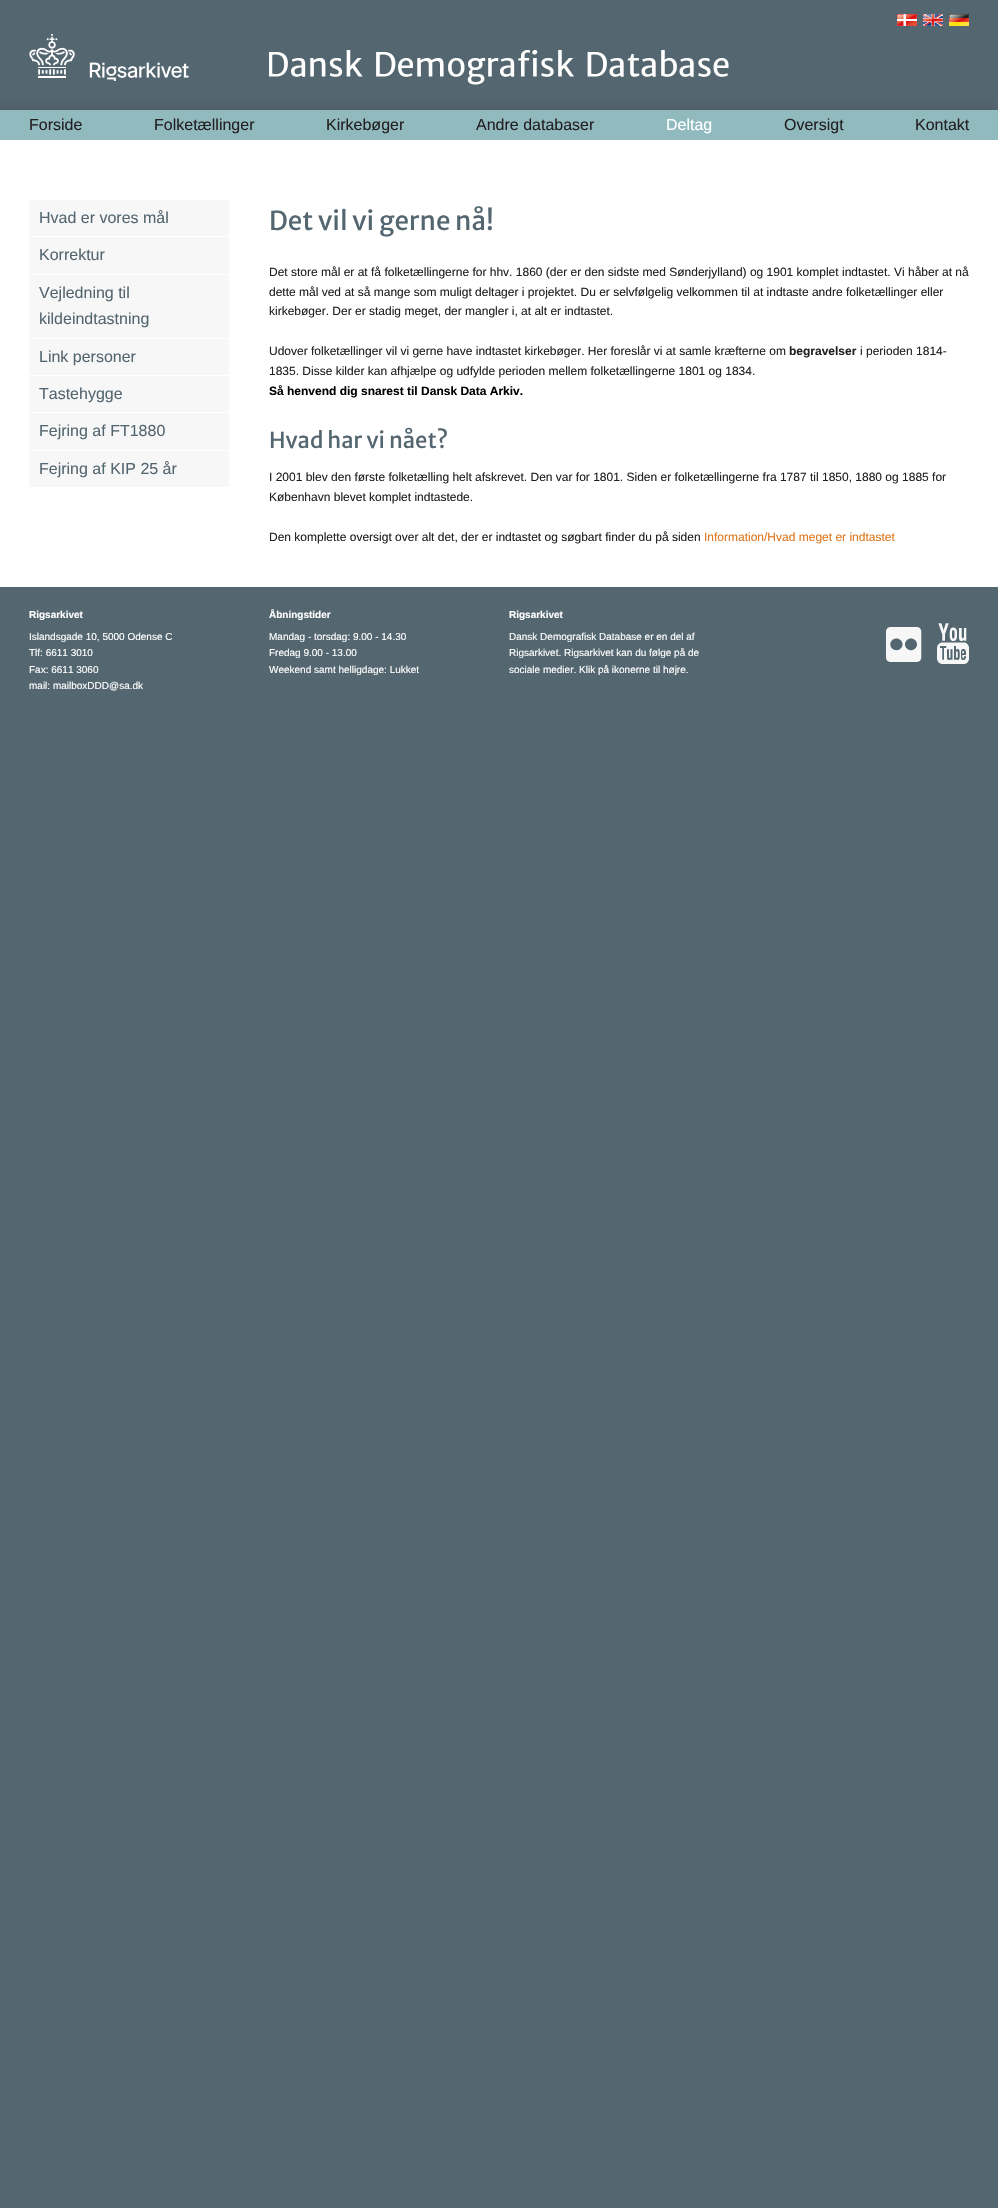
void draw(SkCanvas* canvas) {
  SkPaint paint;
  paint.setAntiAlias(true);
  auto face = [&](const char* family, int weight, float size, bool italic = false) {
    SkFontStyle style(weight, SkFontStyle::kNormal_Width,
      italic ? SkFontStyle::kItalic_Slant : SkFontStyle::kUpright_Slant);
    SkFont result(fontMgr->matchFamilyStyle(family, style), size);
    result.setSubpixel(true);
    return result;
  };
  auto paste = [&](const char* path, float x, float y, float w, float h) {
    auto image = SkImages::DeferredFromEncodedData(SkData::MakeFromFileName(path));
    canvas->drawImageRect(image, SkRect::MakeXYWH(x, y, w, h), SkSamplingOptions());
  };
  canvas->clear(0xff546670);
  paste("img/1.png", 897, 14, 20, 12);
  paste("img/2.png", 923, 14, 20, 12);
  paste("img/3.png", 949, 14, 20, 12);
  paste("img/4.png", 29, 34, 160, 47);
  paste("img/5.png", 269, 50, 460, 35);
  paint.setColor(0x29000000);
  paint.setMaskFilter(SkMaskFilter::MakeBlur(kNormal_SkBlurStyle, 6.5f));
  canvas->drawRect(SkRect::MakeXYWH(-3, 110, 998, 30), paint);
  paint.setMaskFilter(nullptr);
  {
    const struct { float x, y, w, h; SkColor color; } items[] = {
      {0, 110, 998, 30, 0xff91babf},
      {0, 140, 998, 447, 0xffffffff},
      {29, 200, 200, 36, 0xfff7f7f7},
      {29, 237, 200, 37, 0xfff7f7f7},
      {29, 275, 200, 63, 0xfff7f7f7},
      {29, 339, 200, 36, 0xfff7f7f7},
      {29, 376, 200, 36, 0xfff7f7f7},
      {29, 413, 200, 37, 0xfff7f7f7},
      {29, 451, 200, 36, 0xfff7f7f7},
    };
    for (auto [x, y, w, h, color] : items) {
      paint.setColor(color);
      canvas->drawRect(SkRect::MakeXYWH(x, y, w, h), paint);
    }
  }
  paste("img/6.png", 886, 627, 36, 35);
  paste("img/7.png", 937, 623, 32, 41);
  auto f0 = face("Liberation Sans", 400, 16);
  paint.setColor(0xff231f20);
  {
    const struct { const char* s; float x, y; } items[] = {
      {"Forside", 29, 130},
      {"Folketællinger", 154, 130},
      {"Kirkebøger", 326, 130},
      {"Andre databaser", 476, 130},
    };
    for (auto [s, x, y] : items) {
      canvas->drawString(s, x, y, f0, paint);
    }
  }
  paint.setColor(0xffffffff);
  canvas->drawString("Deltag", 666, 130, f0, paint);
  paint.setColor(0xff231f20);
  canvas->drawString("Oversigt", 784, 130, f0, paint);
  canvas->drawString("Kontakt", 915, 130, f0, paint);
  paint.setColor(0xff546670);
  {
    const struct { const char* s; float x, y; } items[] = {
      {"Hvad er vores mål", 39, 223},
      {"Korrektur", 39, 260},
      {"Vejledning til", 39, 298},
      {"kildeindtastning", 39, 324},
      {"Link personer", 39, 362},
      {"Tastehygge", 39, 399},
      {"Fejring af FT1880", 39, 436},
      {"Fejring af KIP 25 år", 39, 474},
    };
    for (auto [s, x, y] : items) {
      canvas->drawString(s, x, y, f0, paint);
    }
  }
  auto f1 = face("Merriweather Sans", 400, 26);
  canvas->drawString("Det vil vi gerne nå!", 269, 230, f1, paint);
  auto f2 = face("Liberation Sans", 400, 12);
  paint.setColor(0xff231f20);
  {
    const struct { const char* s; float x, y; } items[] = {
      {"Det store mål er at få folketællingerne for hhv. 1860 (der er den sidste med Sønderjylland) og 1901 komplet indtastet. Vi håber at nå", 269, 276},
      {"dette mål ved at så mange som muligt deltager i projektet. Du er selvfølgelig velkommen til at indtaste andre folketællinger eller", 269, 296},
      {"kirkebøger. Der er stadig meget, der mangler i, at alt er indtastet.", 269, 315},
      {"Udover folketællinger vil vi gerne have indtastet kirkebøger. Her foreslår vi at samle kræfterne om", 269, 355},
    };
    for (auto [s, x, y] : items) {
      canvas->drawString(s, x, y, f2, paint);
    }
  }
  auto f3 = face("Liberation Sans", 700, 12);
  canvas->drawString("begravelser", 789, 355, f3, paint);
  canvas->drawString("i perioden 1814-", 860, 355, f2, paint);
  canvas->drawString("1835. Disse kilder kan afhjælpe og udfylde perioden mellem folketællingerne 1801 og 1834.", 269, 375, f2, paint);
  paint.setColor(0xff000000);
  canvas->drawString("Så henvend dig snarest til Dansk Data Arkiv.", 269, 395, f3, paint);
  auto f4 = face("Merriweather Sans", 400, 22);
  paint.setColor(0xff546670);
  canvas->drawString("Hvad har vi nået?", 269, 448, f4, paint);
  paint.setColor(0xff231f20);
  {
    const struct { const char* s; float x, y; } items[] = {
      {"I 2001 blev den første folketælling helt afskrevet. Den var for 1801. Siden er folketællingerne fra 1787 til 1850, 1880 og 1885 for", 269, 481},
      {"København blevet komplet indtastede.", 269, 501},
      {"Den komplette oversigt over alt det, der er indtastet og søgbart finder du på siden", 269, 541},
    };
    for (auto [s, x, y] : items) {
      canvas->drawString(s, x, y, f2, paint);
    }
  }
  paint.setColor(0xffde761c);
  canvas->drawString("Information/Hvad meget er indtastet", 704, 541, f2, paint);
  auto f5 = face("Liberation Sans", 700, 10);
  paint.setColor(0xffffffff);
  canvas->drawString("Rigsarkivet", 29, 618, f5, paint);
  auto f6 = face("Liberation Sans", 400, 10);
  {
    const struct { const char* s; float x, y; } items[] = {
      {"Islandsgade 10, 5000 Odense C", 29, 640},
      {"Tlf: 6611 3010", 29, 656},
      {"Fax: 6611 3060", 29, 673},
      {"mail: mailboxDDD@sa.dk", 29, 689},
    };
    for (auto [s, x, y] : items) {
      canvas->drawString(s, x, y, f6, paint);
    }
  }
  canvas->drawString("Åbningstider", 269, 618, f5, paint);
  {
    const struct { const char* s; float x, y; } items[] = {
      {"Mandag - torsdag: 9.00 - 14.30", 269, 640},
      {"Fredag 9.00 - 13.00", 269, 656},
      {"Weekend samt helligdage: Lukket", 269, 673},
    };
    for (auto [s, x, y] : items) {
      canvas->drawString(s, x, y, f6, paint);
    }
  }
  canvas->drawString("Rigsarkivet", 509, 618, f5, paint);
  {
    const struct { const char* s; float x, y; } items[] = {
      {"Dansk Demografisk Database er en del af", 509, 640},
      {"Rigsarkivet. Rigsarkivet kan du følge på de", 509, 656},
      {"sociale medier. Klik på ikonerne til højre.", 509, 673},
    };
    for (auto [s, x, y] : items) {
      canvas->drawString(s, x, y, f6, paint);
    }
  }
}
